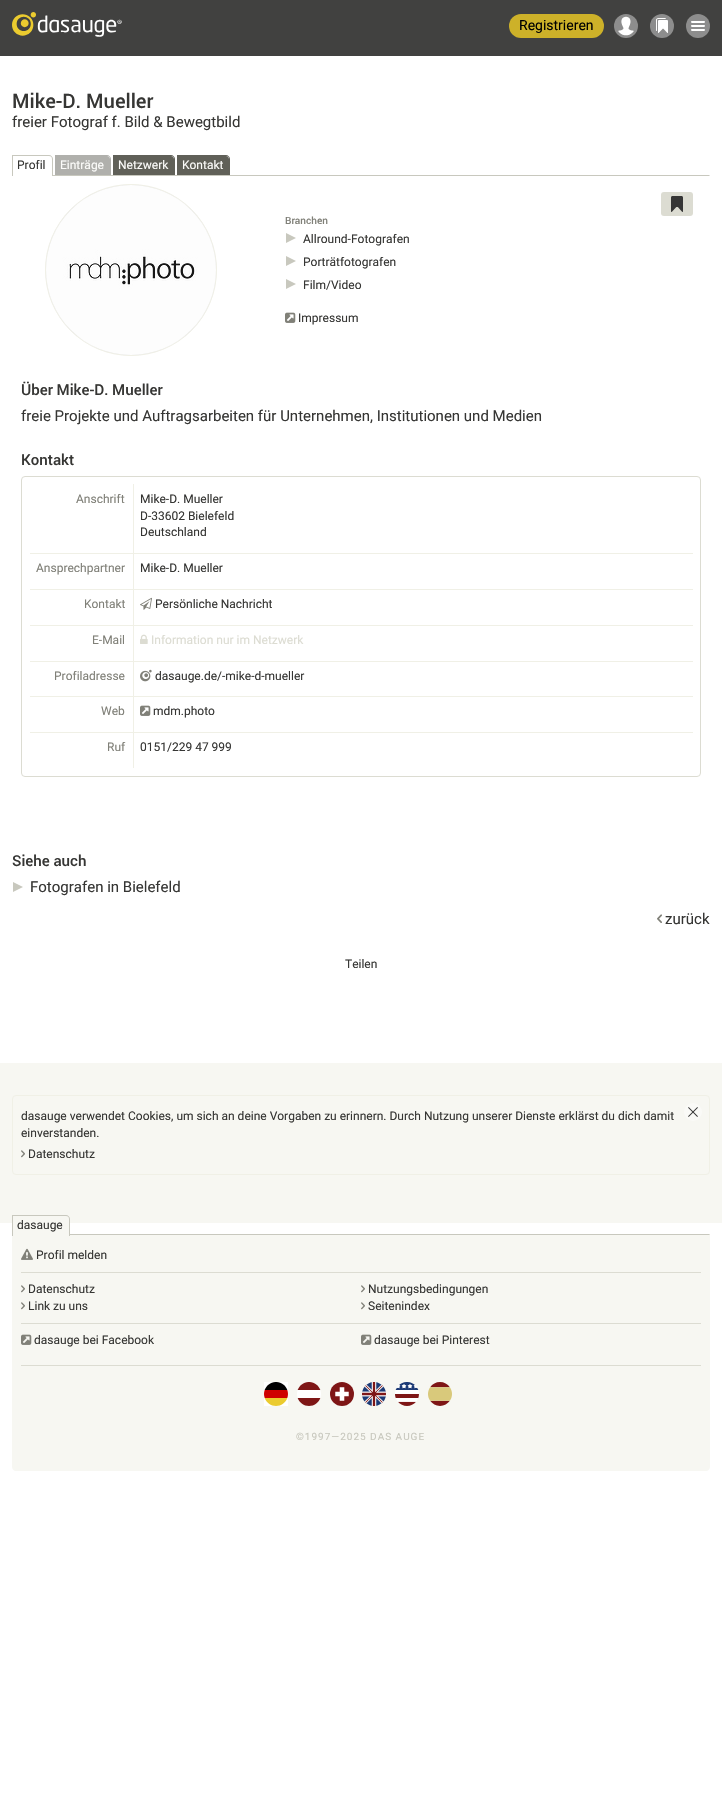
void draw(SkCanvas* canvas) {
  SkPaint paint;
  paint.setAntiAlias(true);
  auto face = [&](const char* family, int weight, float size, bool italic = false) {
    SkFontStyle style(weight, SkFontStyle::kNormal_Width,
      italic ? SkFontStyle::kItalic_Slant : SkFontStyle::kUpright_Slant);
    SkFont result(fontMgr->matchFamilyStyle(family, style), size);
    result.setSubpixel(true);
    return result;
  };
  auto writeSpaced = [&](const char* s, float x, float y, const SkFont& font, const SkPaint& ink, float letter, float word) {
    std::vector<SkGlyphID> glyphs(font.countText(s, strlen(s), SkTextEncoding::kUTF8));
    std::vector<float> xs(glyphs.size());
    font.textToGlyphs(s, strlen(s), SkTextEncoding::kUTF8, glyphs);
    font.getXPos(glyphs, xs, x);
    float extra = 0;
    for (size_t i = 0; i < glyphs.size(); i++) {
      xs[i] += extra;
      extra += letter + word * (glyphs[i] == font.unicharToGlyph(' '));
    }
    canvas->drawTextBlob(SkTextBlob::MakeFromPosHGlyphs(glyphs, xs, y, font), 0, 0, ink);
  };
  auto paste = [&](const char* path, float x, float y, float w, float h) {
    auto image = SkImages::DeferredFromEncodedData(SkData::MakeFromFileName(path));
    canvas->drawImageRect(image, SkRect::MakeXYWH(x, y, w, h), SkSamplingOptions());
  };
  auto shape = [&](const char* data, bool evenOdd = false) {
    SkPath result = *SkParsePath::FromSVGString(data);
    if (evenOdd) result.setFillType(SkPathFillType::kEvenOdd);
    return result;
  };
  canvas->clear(0xffffffff);
  paint.setColor(0xff414140);
  canvas->drawRect(SkRect::MakeXYWH(0, 0, 722, 56), paint);
  paste("img/1.png", 12, 12, 110, 25);
  paint.setColor(0xffcdb129);
  canvas->drawRoundRect(SkRect::MakeXYWH(509, 14, 95, 24), 12, 12, paint);
  paste("img/2.png", 614, 14, 24, 24);
  paste("img/3.png", 650, 14, 24, 24);
  paste("img/4.png", 686, 14, 24, 24);
  paint.setColor(0xffc8c8be);
  canvas->drawPath(shape("M12 175L13 176H709L710 175Z"), paint);
  paint.setColor(0xffffffff);
  canvas->drawPath(shape("M13 156H49C50.5 156 52 157.5 52 159V176H13Z"), paint);
  paint.setColor(0xffc8c8be);
  canvas->drawPath(shape("M12 155H49C51 155 53 157 53 159V176H12ZM13 156H49C51 156 52 157 52 159V176H13Z", true), paint);
  paint.setColor(0xffb0b0ac);
  canvas->drawPath(shape("M56 156H107C108.5 156 110 157.5 110 159V175H56Z"), paint);
  canvas->drawPath(shape("M55 155H107C109 155 111 157 111 159V175H55ZM56 156H107C109 156 110 157 110 159V175H56Z", true), paint);
  paint.setColor(0xff606058);
  canvas->drawPath(shape("M114 156H171C172.5 156 174 157.5 174 159V175H114Z"), paint);
  canvas->drawPath(shape("M113 155H171C173 155 175 157 175 159V175H113ZM114 156H171C173 156 174 157 174 159V175H114Z", true), paint);
  canvas->drawPath(shape("M178 156H226C227.5 156 229 157.5 229 159V175H178Z"), paint);
  canvas->drawPath(shape("M177 155H226C228 155 230 157 230 159V175H177ZM178 156H226C228 156 229 157 229 159V175H178Z", true), paint);
  paint.setColor(0xffdcdcd2);
  canvas->drawRoundRect(SkRect::MakeXYWH(661, 192, 32, 24), 3, 3, paint);
  paste("img/5.png", 671, 196, 12, 16);
  paint.setColor(0xffe2e2e2);
  canvas->drawCircle(131, 270, 85.5f, paint);
  paint.setStroke(true);
  paint.setStrokeWidth(1);
  paint.setColor(0xfff0f0e6);
  canvas->drawCircle(131, 270, 85.5f, paint);
  paste("img/6.png", 46, 185, 170, 170);
  paste("img/7.png", 286, 233, 10, 10);
  paste("img/7.png", 286, 256, 10, 10);
  paste("img/7.png", 286, 279, 10, 10);
  paste("img/8.png", 285, 312, 11, 11);
  paint.setColor(0xffdcdcd2);
  canvas->drawRoundRect(SkRect::MakeXYWH(21.5f, 476.5f, 679, 300), 3.5f, 3.5f, paint);
  paint.setStroke(false);
  {
    const struct { float x, y, w, h; SkColor color; } items[] = {
      {133, 553, 560, 1, 0xfff0f0e6},
      {133, 589, 560, 1, 0xfff0f0e6},
      {133, 625, 560, 1, 0xfff0f0e6},
      {133, 661, 560, 1, 0xfff0f0e6},
      {133, 696, 560, 1, 0xfff0f0e6},
      {133, 732, 560, 1, 0xfff0f0e6},
      {133, 732, 1, 36, 0xfff0f0e6},
      {30, 732, 104, 1, 0xfff0f0e6},
      {133, 696, 1, 37, 0xfff0f0e6},
      {30, 696, 104, 1, 0xfff0f0e6},
      {133, 661, 1, 36, 0xfff0f0e6},
      {30, 661, 104, 1, 0xfff0f0e6},
      {133, 625, 1, 37, 0xfff0f0e6},
      {30, 625, 104, 1, 0xfff0f0e6},
      {133, 589, 1, 37, 0xfff0f0e6},
      {30, 589, 104, 1, 0xfff0f0e6},
      {133, 553, 1, 37, 0xfff0f0e6},
      {30, 553, 104, 1, 0xfff0f0e6},
      {133, 484, 1, 70, 0xfff0f0e6},
    };
    for (auto [x, y, w, h, color] : items) {
      paint.setColor(color);
      canvas->drawRect(SkRect::MakeXYWH(x, y, w, h), paint);
    }
  }
  paste("img/9.png", 140, 597, 12, 13);
  paste("img/10.png", 140, 634, 8, 10);
  paste("img/11.png", 140, 669, 12, 13);
  paste("img/8.png", 140, 705, 11, 11);
  paste("img/7.png", 13, 882, 10, 10);
  paste("img/12.png", 657, 914, 5, 9);
  paint.setColor(0xfff7f7f2);
  canvas->drawRect(SkRect::MakeXYWH(0, 1063, 722, 160), paint);
  paint.setStroke(true);
  paint.setColor(0xfff0f0e6);
  canvas->drawRoundRect(SkRect::MakeXYWH(12.5f, 1095.5f, 697, 79), 3.5f, 3.5f, paint);
  paste("img/13.png", 684, 1103, 18, 18);
  paste("img/14.png", 21, 1150, 4, 8);
  paint.setStroke(false);
  paint.setColor(0xfff7f7f2);
  canvas->drawPath(shape("M12 1234H710V1467C710 1469 708 1471 706 1471H16C14 1471 12 1469 12 1467Z"), paint);
  paint.setColor(0xffc8c8be);
  canvas->drawPath(shape("M12 1234L13 1235H709L710 1234Z"), paint);
  paint.setColor(0xfff7f7f2);
  canvas->drawPath(shape("M13 1216H66C67.5 1216 69 1217.5 69 1219V1236H13Z"), paint);
  paint.setColor(0xffc8c8be);
  canvas->drawPath(shape("M12 1215H66C68 1215 70 1217 70 1219V1236H12ZM13 1216H66C68 1216 69 1217 69 1219V1236H13Z", true), paint);
  paste("img/15.png", 21, 1248, 12, 12);
  paint.setColor(0xffdcdcd2);
  canvas->drawRect(SkRect::MakeXYWH(21, 1272, 680, 1), paint);
  paste("img/14.png", 21, 1285, 4, 8);
  paste("img/14.png", 361, 1285, 4, 8);
  paste("img/14.png", 21, 1302, 4, 8);
  paste("img/14.png", 361, 1302, 4, 8);
  canvas->drawRect(SkRect::MakeXYWH(21, 1323, 680, 1), paint);
  paste("img/16.png", 21, 1334, 11, 11);
  paste("img/16.png", 361, 1334, 11, 11);
  canvas->drawRect(SkRect::MakeXYWH(21, 1365, 680, 1), paint);
  paint.setColor(0xffffffff);
  canvas->drawRect(SkRect::MakeXYWH(264, 1382, 24, 24), paint);
  paste("img/17.png", 264, 1382, 24, 24);
  paste("img/18.png", 297, 1382, 24, 24);
  paste("img/19.png", 330, 1382, 24, 24);
  paste("img/20.png", 362, 1382, 24, 24);
  paste("img/21.png", 395, 1382, 24, 24);
  paste("img/22.png", 428, 1382, 24, 24);
  auto f0 = face("Roboto", 400, 14);
  paint.setColor(0xff000000);
  canvas->drawString("Registrieren", 519, 30, f0, paint);
  auto f1 = face("Roboto", 500, 20);
  paint.setColor(0xff363634);
  canvas->drawString("Mike-D. Mueller", 12, 108, f1, paint);
  auto f2 = face("Roboto", 400, 15);
  canvas->drawString("freier Fotograf f. Bild & Bewegtbild", 12, 127, f2, paint);
  auto f3 = face("Roboto", 400, 12);
  canvas->drawString("Profil", 17, 169, f3, paint);
  paint.setColor(0xfffcfcfa);
  {
    const struct { const char* s; float x, y; } items[] = {
      {"Einträge", 60, 169},
      {"Netzwerk", 118, 169},
      {"Kontakt", 182, 169},
    };
    for (auto [s, x, y] : items) {
      canvas->drawString(s, x, y, f3, paint);
    }
  }
  auto f4 = face("Roboto", 500, 10);
  paint.setColor(0xff808078);
  canvas->drawString("Branchen", 285, 224, f4, paint);
  paint.setColor(0xff363634);
  {
    const struct { const char* s; float x, y; } items[] = {
      {"Allround-Fotografen", 303, 243},
      {"Porträtfotografen", 303, 266},
      {"Film/Video", 303, 289},
      {"Impressum", 298, 322},
    };
    for (auto [s, x, y] : items) {
      canvas->drawString(s, x, y, f3, paint);
    }
  }
  auto f5 = face("Roboto", 500, 15);
  canvas->drawString("Über Mike-D. Mueller", 21, 395, f5, paint);
  canvas->drawString("freie Projekte und Auftragsarbeiten für Unternehmen, Institutionen und Medien", 21, 421, f2, paint);
  canvas->drawString("Kontakt", 21, 465, f5, paint);
  paint.setColor(0xff808078);
  canvas->drawString("Anschrift", 76, 503, f3, paint);
  paint.setColor(0xff363634);
  {
    const struct { const char* s; float x, y; } items[] = {
      {"Mike-D. Mueller", 140, 503},
      {"D-33602 Bielefeld", 140, 520},
      {"Deutschland", 140, 536},
    };
    for (auto [s, x, y] : items) {
      canvas->drawString(s, x, y, f3, paint);
    }
  }
  paint.setColor(0xff808078);
  canvas->drawString("Ansprechpartner", 36, 572, f3, paint);
  paint.setColor(0xff363634);
  canvas->drawString("Mike-D. Mueller", 140, 572, f3, paint);
  paint.setColor(0xff808078);
  canvas->drawString("Kontakt", 84, 608, f3, paint);
  paint.setColor(0xff363634);
  canvas->drawString("Persönliche Nachricht", 155, 608, f3, paint);
  paint.setColor(0xff808078);
  canvas->drawString("E-Mail", 92, 644, f3, paint);
  paint.setColor(0xffdcdcd2);
  canvas->drawString("Information nur im Netzwerk", 151, 644, f3, paint);
  paint.setColor(0xff808078);
  canvas->drawString("Profiladresse", 54, 680, f3, paint);
  paint.setColor(0xff363634);
  canvas->drawString("dasauge.de/-mike-d-mueller", 155, 680, f3, paint);
  paint.setColor(0xff808078);
  canvas->drawString("Web", 101, 715, f3, paint);
  paint.setColor(0xff363634);
  canvas->drawString("mdm.photo", 153, 715, f3, paint);
  paint.setColor(0xff808078);
  canvas->drawString("Ruf", 107, 751, f3, paint);
  paint.setColor(0xff363634);
  canvas->drawString("0151/229 47 999", 140, 751, f3, paint);
  canvas->drawString("Siehe auch", 12, 866, f5, paint);
  canvas->drawString("Fotografen in Bielefeld", 30, 892, f2, paint);
  canvas->drawString("zurück", 665, 924, f2, paint);
  {
    const struct { const char* s; float x, y; } items[] = {
      {"Teilen", 345, 968},
      {"dasauge verwendet Cookies, um sich an deine Vorgaben zu erinnern. Durch Nutzung unserer Dienste erklärst du dich damit", 21, 1120},
      {"einverstanden.", 21, 1137},
      {"Datenschutz", 28, 1158},
      {"dasauge", 17, 1229},
      {"Profil melden", 36, 1259},
      {"Datenschutz", 28, 1293},
      {"Nutzungsbedingungen", 368, 1293},
      {"Link zu uns", 28, 1310},
      {"Seitenindex", 368, 1310},
      {"dasauge bei Facebook", 34, 1344},
      {"dasauge bei Pinterest", 374, 1344},
    };
    for (auto [s, x, y] : items) {
      canvas->drawString(s, x, y, f3, paint);
    }
  }
  auto f6 = face("Roboto", 400, 10);
  paint.setColor(0xffc8c8be);
  writeSpaced("©1997—2025 DAS AUGE", 296, 1440, f6, paint, 1, 0);
}
